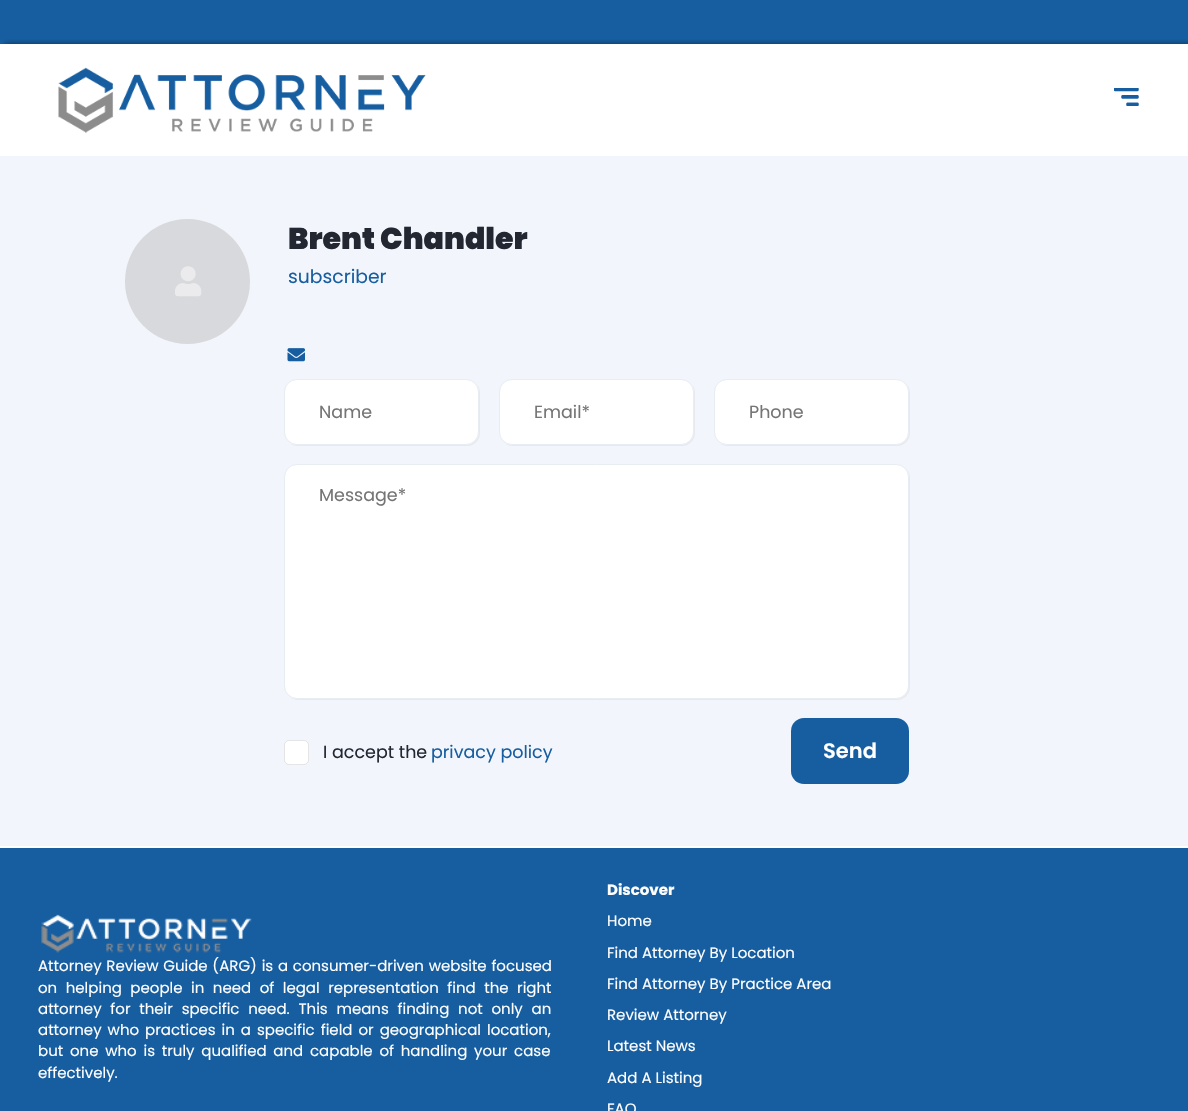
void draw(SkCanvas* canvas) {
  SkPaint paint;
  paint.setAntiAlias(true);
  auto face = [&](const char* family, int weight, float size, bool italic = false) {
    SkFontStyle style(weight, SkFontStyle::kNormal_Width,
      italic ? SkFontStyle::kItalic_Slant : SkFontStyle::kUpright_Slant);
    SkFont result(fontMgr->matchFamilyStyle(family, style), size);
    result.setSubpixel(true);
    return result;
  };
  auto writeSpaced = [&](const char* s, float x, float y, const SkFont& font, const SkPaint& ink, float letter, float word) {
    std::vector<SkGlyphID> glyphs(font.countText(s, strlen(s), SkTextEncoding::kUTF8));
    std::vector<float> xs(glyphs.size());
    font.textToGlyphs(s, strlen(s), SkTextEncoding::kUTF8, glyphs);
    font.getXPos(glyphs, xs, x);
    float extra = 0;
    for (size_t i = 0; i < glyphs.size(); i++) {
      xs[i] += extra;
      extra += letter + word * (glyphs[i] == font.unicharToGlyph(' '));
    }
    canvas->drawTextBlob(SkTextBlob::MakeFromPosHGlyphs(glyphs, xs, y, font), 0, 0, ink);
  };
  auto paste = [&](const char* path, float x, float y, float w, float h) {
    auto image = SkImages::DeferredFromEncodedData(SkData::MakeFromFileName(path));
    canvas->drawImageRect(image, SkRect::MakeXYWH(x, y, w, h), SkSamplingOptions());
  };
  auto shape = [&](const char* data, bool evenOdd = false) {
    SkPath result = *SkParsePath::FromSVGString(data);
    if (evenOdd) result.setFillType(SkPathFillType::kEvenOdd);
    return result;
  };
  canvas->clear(0xffffffff);
  paint.setColor(0xff175ea1);
  canvas->drawRect(SkRect::MakeXYWH(0, 0, 1188, 44), paint);
  canvas->save();
  canvas->clipRect(SkRect::MakeXYWH(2, 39, 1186, 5));
  paint.setColor(0x80000000);
  paint.setMaskFilter(SkMaskFilter::MakeBlur(kNormal_SkBlurStyle, 3));
  canvas->drawRect(SkRect::MakeXYWH(5, 44, 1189, 112), paint);
  paint.setMaskFilter(nullptr);
  canvas->restore();
  paste("img/1.png", 58, 67, 368, 66);
  paste("img/2.png", 1114, 88, 25, 18);
  paint.setColor(0xfff2f5fb);
  canvas->drawRect(SkRect::MakeXYWH(0, 156, 1188, 690), paint);
  paint.setColor(0xffd8d9dc);
  canvas->drawCircle(187.5f, 281.5f, 62.5f, paint);
  paste("img/3.png", 175, 266, 27, 31);
  paste("img/4.png", 287, 348, 18, 14);
  paint.setColor(0xffe7e9ee);
  canvas->drawPath(shape("M290 444C293 445 295 446 298 446H467C474 446 480 440 480 433V393C480 390 479 387 477 384C478 386 479 389 479 391V432C479 439 473 445 466 445H296C294 445 292 444 290 444Z"), paint);
  paint.setColor(0xffffffff);
  canvas->drawRoundRect(SkRect::MakeXYWH(284.5f, 379.5f, 194, 65), 12.5f, 12.5f, paint);
  paint.setStroke(true);
  paint.setStrokeWidth(1);
  paint.setColor(0xffe7edf3);
  canvas->drawRoundRect(SkRect::MakeXYWH(284.5f, 379.5f, 194, 65), 12.5f, 12.5f, paint);
  paint.setStroke(false);
  paint.setColor(0xffe7e9ee);
  canvas->drawPath(shape("M505 444C508 445 510 446 513 446H682C689 446 695 440 695 433V393C695 390 694 387 692 384C693 386 694 389 694 391V432C694 439 688 445 681 445H511C509 445 507 444 505 444Z"), paint);
  paint.setColor(0xffffffff);
  canvas->drawRoundRect(SkRect::MakeXYWH(499.5f, 379.5f, 194, 65), 12.5f, 12.5f, paint);
  paint.setStroke(true);
  paint.setColor(0xffe7edf3);
  canvas->drawRoundRect(SkRect::MakeXYWH(499.5f, 379.5f, 194, 65), 12.5f, 12.5f, paint);
  paint.setStroke(false);
  paint.setColor(0xffe7e9ee);
  canvas->drawPath(shape("M720 444C723 445 725 446 728 446H897C904 446 910 440 910 433V393C910 390 909 387 907 384C908 386 909 389 909 391V432C909 439 903 445 896 445H726C724 445 722 444 720 444Z"), paint);
  paint.setColor(0xffffffff);
  canvas->drawRoundRect(SkRect::MakeXYWH(714.5f, 379.5f, 194, 65), 12.5f, 12.5f, paint);
  paint.setStroke(true);
  paint.setColor(0xffe7edf3);
  canvas->drawRoundRect(SkRect::MakeXYWH(714.5f, 379.5f, 194, 65), 12.5f, 12.5f, paint);
  paint.setStroke(false);
  paint.setColor(0xffe7e9ee);
  canvas->drawPath(shape("M289 697C292 699 295 700 298 700H897C904 700 910 694 910 687V478C910 475 909 472 907 469C908 471 909 474 909 476V686C909 693 903 699 896 699H296C294 699 291 698 289 697Z"), paint);
  paint.setColor(0xffffffff);
  canvas->drawRoundRect(SkRect::MakeXYWH(284.5f, 464.5f, 624, 234), 12.5f, 12.5f, paint);
  paint.setStroke(true);
  paint.setColor(0xffe7edf3);
  canvas->drawRoundRect(SkRect::MakeXYWH(284.5f, 464.5f, 624, 234), 12.5f, 12.5f, paint);
  paint.setStroke(false);
  paint.setColor(0xffffffff);
  canvas->drawRoundRect(SkRect::MakeXYWH(284, 740, 25, 25), 5, 5, paint);
  paint.setStroke(true);
  paint.setColor(0x1a000000);
  canvas->drawRoundRect(SkRect::MakeXYWH(284.5f, 740.5f, 24, 24), 4.5f, 4.5f, paint);
  paint.setStroke(false);
  paint.setColor(0xff175ea1);
  canvas->drawRoundRect(SkRect::MakeXYWH(791, 718, 118, 66), 13, 13, paint);
  canvas->drawRect(SkRect::MakeXYWH(0, 848, 1188, 263), paint);
  paste("img/5.png", 41, 914, 211, 39);
  auto f0 = face("Poppins", 900, 30);
  paint.setColor(0xff222732);
  canvas->drawString("Brent Chandler", 288, 249, f0, paint);
  auto f1 = face("Poppins", 400, 18.75f);
  paint.setColor(0xff175ea1);
  canvas->drawString("subscriber", 288, 283, f1, paint);
  auto f2 = face("Poppins", 400, 17.5f);
  paint.setColor(0xff757575);
  {
    const struct { const char* s; float x, y; } items[] = {
      {"Name", 319, 418},
      {"Email*", 534, 418},
      {"Phone", 749, 418},
      {"Message*", 319, 501},
    };
    for (auto [s, x, y] : items) {
      canvas->drawString(s, x, y, f2, paint);
    }
  }
  paint.setColor(0xff222732);
  canvas->drawString("I accept the", 323, 758, f2, paint);
  paint.setColor(0xff175ea1);
  canvas->drawString("privacy policy", 431, 758, f2, paint);
  auto f3 = face("Poppins", 600, 21);
  paint.setColor(0xffffffff);
  canvas->drawString("Send", 823, 758, f3, paint);
  auto f4 = face("Poppins", 400, 15);
  writeSpaced("Attorney Review Guide (ARG) is a consumer-driven website focused", 38, 971, f4, paint, 0, 0.75f);
  writeSpaced("on helping people in need of legal representation find the right", 38, 993, f4, paint, 0, 4.5f);
  writeSpaced("attorney for their specific need. This means finding not only an", 38, 1014, f4, paint, 0, 4.75f);
  writeSpaced("attorney who practices in a specific field or geographical location,", 38, 1035, f4, paint, 0, 2);
  writeSpaced("but one who is truly qualified and capable of handling your case", 38, 1056, f4, paint, 0, 2.75f);
  canvas->drawString("effectively.", 38, 1078, f4, paint);
  auto f5 = face("Poppins", 700, 15);
  canvas->drawString("Discover", 607, 895, f5, paint);
  {
    const struct { const char* s; float x, y; } items[] = {
      {"Home", 607, 926},
      {"Find Attorney By Location", 607, 958},
      {"Find Attorney By Practice Area", 607, 989},
      {"Review Attorney", 607, 1020},
      {"Latest News", 607, 1051},
      {"Add A Listing", 607, 1083},
      {"FAQ", 607, 1114},
    };
    for (auto [s, x, y] : items) {
      canvas->drawString(s, x, y, f4, paint);
    }
  }
}
